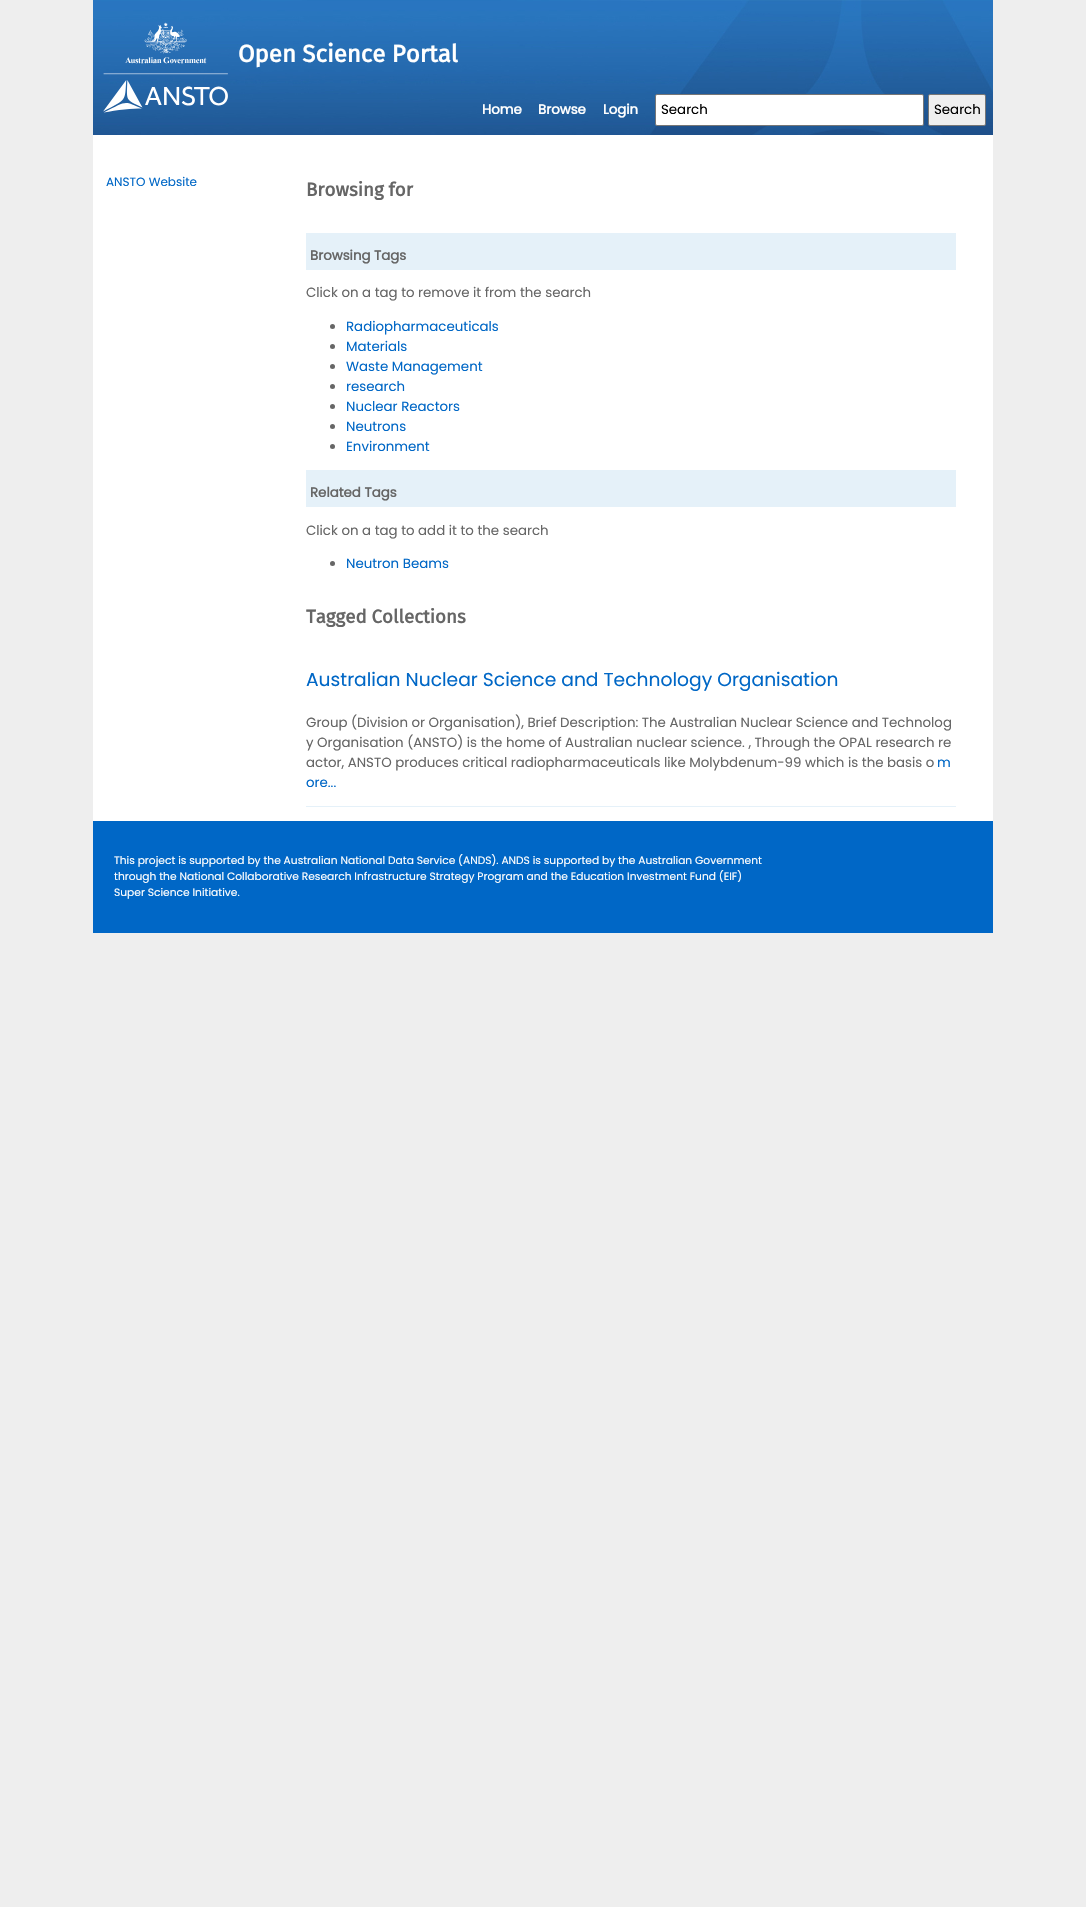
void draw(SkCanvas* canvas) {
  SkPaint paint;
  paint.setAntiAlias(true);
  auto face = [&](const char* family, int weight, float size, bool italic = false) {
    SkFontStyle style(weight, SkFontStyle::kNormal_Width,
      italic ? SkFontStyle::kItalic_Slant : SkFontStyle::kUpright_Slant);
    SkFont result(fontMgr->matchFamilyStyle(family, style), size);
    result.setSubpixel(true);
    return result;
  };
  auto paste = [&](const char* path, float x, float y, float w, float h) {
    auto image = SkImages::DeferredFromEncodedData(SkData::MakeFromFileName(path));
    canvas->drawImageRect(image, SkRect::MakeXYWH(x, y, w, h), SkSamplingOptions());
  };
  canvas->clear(0xffeeeeee);
  paint.setColor(0xffffffff);
  canvas->drawRect(SkRect::MakeXYWH(93, 135, 900, 686), paint);
  paste("img/1.png", 93, 0, 900, 135);
  paste("img/2.png", 103, 22, 125, 91);
  canvas->drawRoundRect(SkRect::MakeXYWH(655.5f, 94.5f, 268, 31), 1.5f, 1.5f, paint);
  paint.setStroke(true);
  paint.setStrokeWidth(1);
  paint.setColor(0xff767676);
  canvas->drawRoundRect(SkRect::MakeXYWH(655.5f, 94.5f, 268, 31), 1.5f, 1.5f, paint);
  paint.setStroke(false);
  paint.setColor(0xffefefef);
  canvas->drawRoundRect(SkRect::MakeXYWH(928.5f, 94.5f, 57, 31), 1.5f, 1.5f, paint);
  paint.setStroke(true);
  paint.setColor(0xff767676);
  canvas->drawRoundRect(SkRect::MakeXYWH(928.5f, 94.5f, 57, 31), 1.5f, 1.5f, paint);
  paint.setStroke(false);
  paint.setColor(0xffe5f1f9);
  canvas->drawRect(SkRect::MakeXYWH(306, 233, 650, 37), paint);
  paint.setColor(0xff666666);
  canvas->drawCircle(332.5f, 326.5f, 2.5f, paint);
  canvas->drawCircle(332.5f, 346.5f, 2.5f, paint);
  canvas->drawCircle(332.5f, 366.5f, 2.5f, paint);
  canvas->drawCircle(332.5f, 386.5f, 2.5f, paint);
  canvas->drawCircle(332.5f, 406.5f, 2.5f, paint);
  canvas->drawCircle(332.5f, 426.5f, 2.5f, paint);
  canvas->drawCircle(332.5f, 446.5f, 2.5f, paint);
  paint.setColor(0xffe5f1f9);
  canvas->drawRect(SkRect::MakeXYWH(306, 470, 650, 37), paint);
  paint.setColor(0xff666666);
  canvas->drawCircle(332.5f, 563.5f, 2.5f, paint);
  paint.setColor(0xffe5f1f9);
  canvas->drawRect(SkRect::MakeXYWH(306, 806, 650, 1), paint);
  paint.setColor(0xff0067c6);
  canvas->drawRect(SkRect::MakeXYWH(93, 821, 900, 112), paint);
  auto f0 = face("Fira Sans", 700, 24);
  paint.setColor(0xffffffff);
  canvas->drawString("Open Science Portal", 238, 62, f0, paint);
  auto f1 = face("Poppins", 700, 13.35f);
  {
    const struct { const char* s; float x, y; } items[] = {
      {"Home", 482, 114},
      {"Browse", 538, 114},
      {"Login", 603, 114},
    };
    for (auto [s, x, y] : items) {
      canvas->drawString(s, x, y, f1, paint);
    }
  }
  auto f2 = face("Poppins", 400, 13.35f);
  paint.setColor(0xff000000);
  canvas->drawString("Search", 661, 114, f2, paint);
  canvas->drawString("Search", 934, 114, f2, paint);
  auto f3 = face("Poppins", 400, 12);
  paint.setColor(0xff0067c6);
  canvas->drawString("ANSTO Website", 106, 186, f3, paint);
  auto f4 = face("Fira Sans", 700, 18.7f);
  paint.setColor(0xff666666);
  canvas->drawString("Browsing for", 306, 196, f4, paint);
  canvas->drawString("Browsing Tags", 310, 260, f1, paint);
  canvas->drawString("Click on a tag to remove it from the search", 306, 297, f2, paint);
  paint.setColor(0xff0067c6);
  {
    const struct { const char* s; float x, y; } items[] = {
      {"Radiopharmaceuticals", 346, 331},
      {"Materials", 346, 351},
      {"Waste Management", 346, 371},
      {"research", 346, 391},
      {"Nuclear Reactors", 346, 411},
      {"Neutrons", 346, 431},
      {"Environment", 346, 451},
    };
    for (auto [s, x, y] : items) {
      canvas->drawString(s, x, y, f2, paint);
    }
  }
  paint.setColor(0xff666666);
  canvas->drawString("Related Tags", 310, 497, f1, paint);
  canvas->drawString("Click on a tag to add it to the search", 306, 535, f2, paint);
  paint.setColor(0xff0067c6);
  canvas->drawString("Neutron Beams", 346, 568, f2, paint);
  paint.setColor(0xff666666);
  canvas->drawString("Tagged Collections", 306, 623, f4, paint);
  auto f5 = face("Poppins", 400, 18.7f);
  paint.setColor(0xff0067c6);
  canvas->drawString("Australian Nuclear Science and Technology Organisation", 306, 686, f5, paint);
  paint.setColor(0xff666666);
  {
    const struct { const char* s; float x, y; } items[] = {
      {"Group (Division or Organisation), Brief Description: The Australian Nuclear Science and Technolog", 306, 727},
      {"y Organisation (ANSTO) is the home of Australian nuclear science. , Through the OPAL research re", 306, 747},
      {"actor, ANSTO produces critical radiopharmaceuticals like Molybdenum-99 which is the basis o", 306, 767},
    };
    for (auto [s, x, y] : items) {
      canvas->drawString(s, x, y, f2, paint);
    }
  }
  paint.setColor(0xff0067c6);
  canvas->drawString("m", 937, 767, f2, paint);
  canvas->drawString("ore...", 306, 787, f2, paint);
  auto f6 = face("Poppins", 400, 10.67f);
  paint.setColor(0xffffffff);
  {
    const struct { const char* s; float x, y; } items[] = {
      {"This project is supported by the Australian National Data Service (ANDS). ANDS is supported by the Australian Government", 114, 864},
      {"through the National Collaborative Research Infrastructure Strategy Program and the Education Investment Fund (EIF)", 114, 880},
      {"Super Science Initiative.", 114, 896},
    };
    for (auto [s, x, y] : items) {
      canvas->drawString(s, x, y, f6, paint);
    }
  }
}
